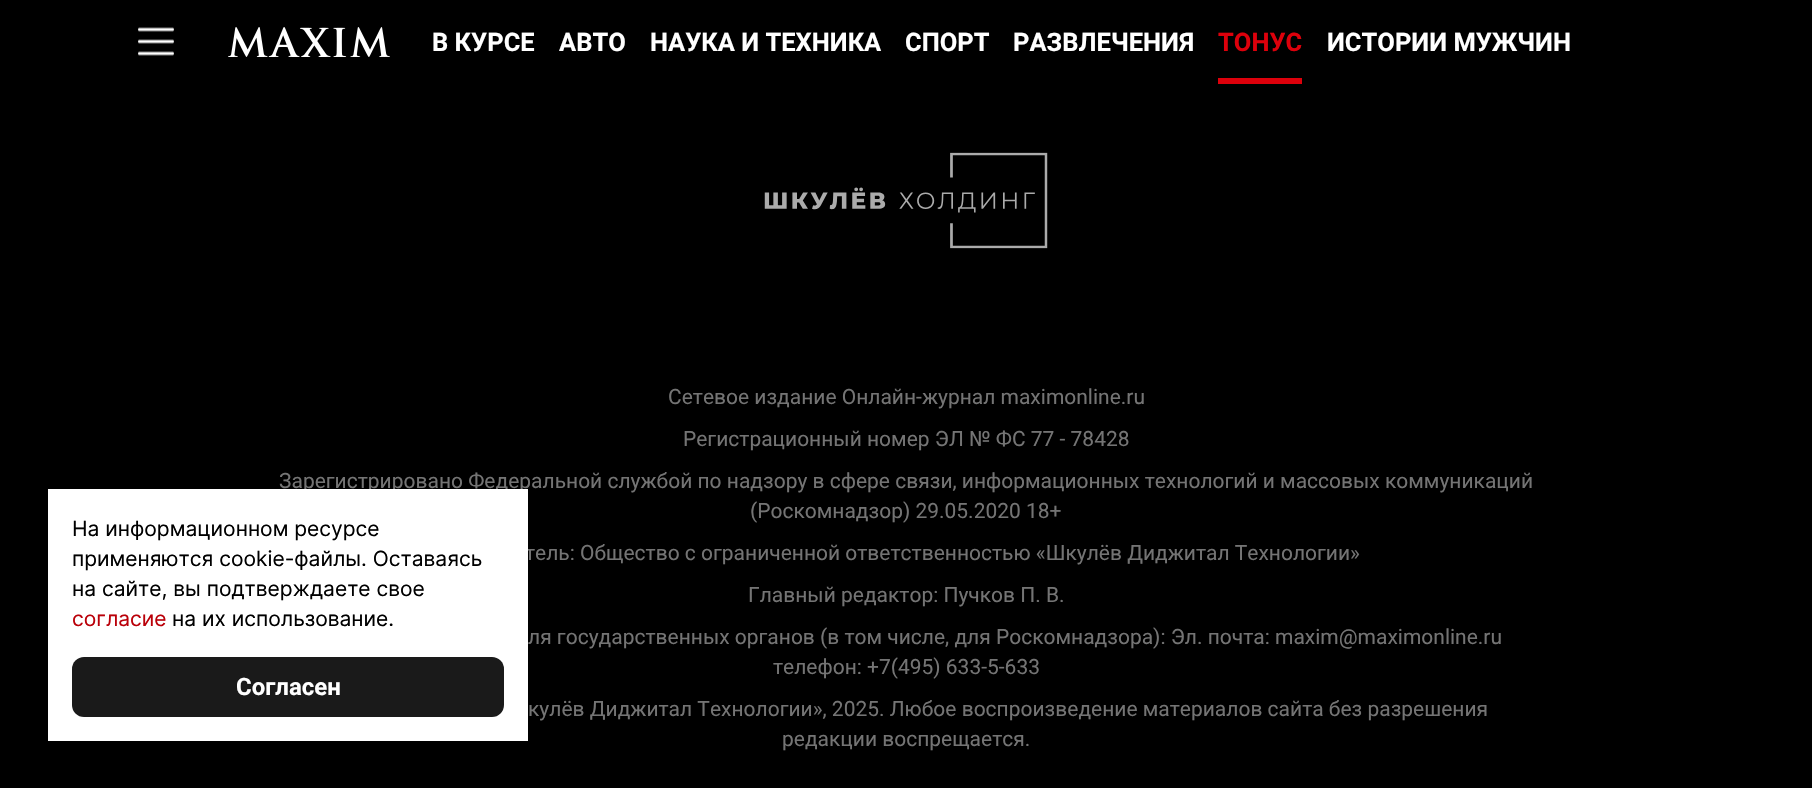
void draw(SkCanvas* canvas) {
  SkPaint paint;
  paint.setAntiAlias(true);
  auto face = [&](const char* family, int weight, float size, bool italic = false) {
    SkFontStyle style(weight, SkFontStyle::kNormal_Width,
      italic ? SkFontStyle::kItalic_Slant : SkFontStyle::kUpright_Slant);
    SkFont result(fontMgr->matchFamilyStyle(family, style), size);
    result.setSubpixel(true);
    return result;
  };
  auto paste = [&](const char* path, float x, float y, float w, float h) {
    auto image = SkImages::DeferredFromEncodedData(SkData::MakeFromFileName(path));
    canvas->drawImageRect(image, SkRect::MakeXYWH(x, y, w, h), SkSamplingOptions());
  };
  canvas->clear(0xff000000);
  paste("img/1.png", 138, 27, 36, 29);
  paste("img/2.png", 228, 27, 162, 30);
  paint.setColor(0xffdd000b);
  canvas->drawRect(SkRect::MakeXYWH(1218, 78, 84, 6), paint);
  paint.setColor(0x29000000);
  paint.setMaskFilter(SkMaskFilter::MakeBlur(kNormal_SkBlurStyle, 12));
  canvas->drawRect(SkRect::MakeXYWH(48, 489, 480, 252), paint);
  paint.setMaskFilter(nullptr);
  paste("img/3.png", 764, 152, 284, 97);
  auto f0 = face("Roboto", 700, 25.5f);
  paint.setColor(0xffffffff);
  {
    const struct { const char* s; float x, y; } items[] = {
      {"В КУРСЕ", 432, 51},
      {"АВТО", 559, 51},
      {"НАУКА И ТЕХНИКА", 650, 51},
      {"СПОРТ", 905, 51},
      {"РАЗВЛЕЧЕНИЯ", 1013, 51},
    };
    for (auto [s, x, y] : items) {
      canvas->drawString(s, x, y, f0, paint);
    }
  }
  paint.setColor(0xffdd000b);
  canvas->drawString("ТОНУС", 1218, 51, f0, paint);
  paint.setColor(0xffffffff);
  canvas->drawString("ИСТОРИИ МУЖЧИН", 1327, 51, f0, paint);
  auto f1 = face("Roboto", 400, 21);
  paint.setColor(0xff747474);
  {
    const struct { const char* s; float x, y; } items[] = {
      {"Сетевое издание Онлайн-журнал maximonline.ru", 668, 404},
      {"Регистрационный номер ЭЛ № ФС 77 - 78428", 683, 446},
      {"Зарегистрировано Федеральной службой по надзору в сфере связи, информационных технологий и массовых коммуникаций", 279, 488},
      {"(Роскомнадзор) 29.05.2020 18+", 750, 518},
      {"тель: Общество с ограниченной ответственностью «Шкулёв Диджитал Технологии»", 525, 560},
    };
    for (auto [s, x, y] : items) {
      canvas->drawString(s, x, y, f1, paint);
    }
  }
  paint.setColor(0xffffffff);
  canvas->drawRect(SkRect::MakeXYWH(48, 489, 480, 252), paint);
  paint.setColor(0xff1a1a1a);
  canvas->drawRoundRect(SkRect::MakeXYWH(72, 657, 432, 60), 12, 12, paint);
  auto f2 = face("Roboto", 700, 24);
  paint.setColor(0xffffffff);
  canvas->drawString("Согласен", 236, 695, f2, paint);
  auto f3 = face("Inter", 400, 21);
  paint.setColor(0xff000000);
  canvas->drawString("на их использование.", 172, 626, f3, paint);
  paint.setColor(0xffba0009);
  canvas->drawString("согласие", 72, 626, f3, paint);
  paint.setColor(0xff000000);
  {
    const struct { const char* s; float x, y; } items[] = {
      {"на сайте, вы подтверждаете свое", 72, 596},
      {"применяются cookie-файлы. Оставаясь", 72, 566},
      {"На информационном ресурсе", 72, 536},
    };
    for (auto [s, x, y] : items) {
      canvas->drawString(s, x, y, f3, paint);
    }
  }
  paint.setColor(0xff747474);
  {
    const struct { const char* s; float x, y; } items[] = {
      {"Главный редактор: Пучков П. В.", 748, 602},
      {"ля государственных органов (в том числе, для Роскомнадзора): Эл. почта: maxim@maximonline.ru", 528, 644},
      {"телефон: +7(495) 633-5-633", 773, 674},
      {"кулёв Диджитал Технологии», 2025. Любое воспроизведение материалов сайта без разрешения", 528, 716},
      {"редакции воспрещается.", 782, 746},
    };
    for (auto [s, x, y] : items) {
      canvas->drawString(s, x, y, f1, paint);
    }
  }
}
